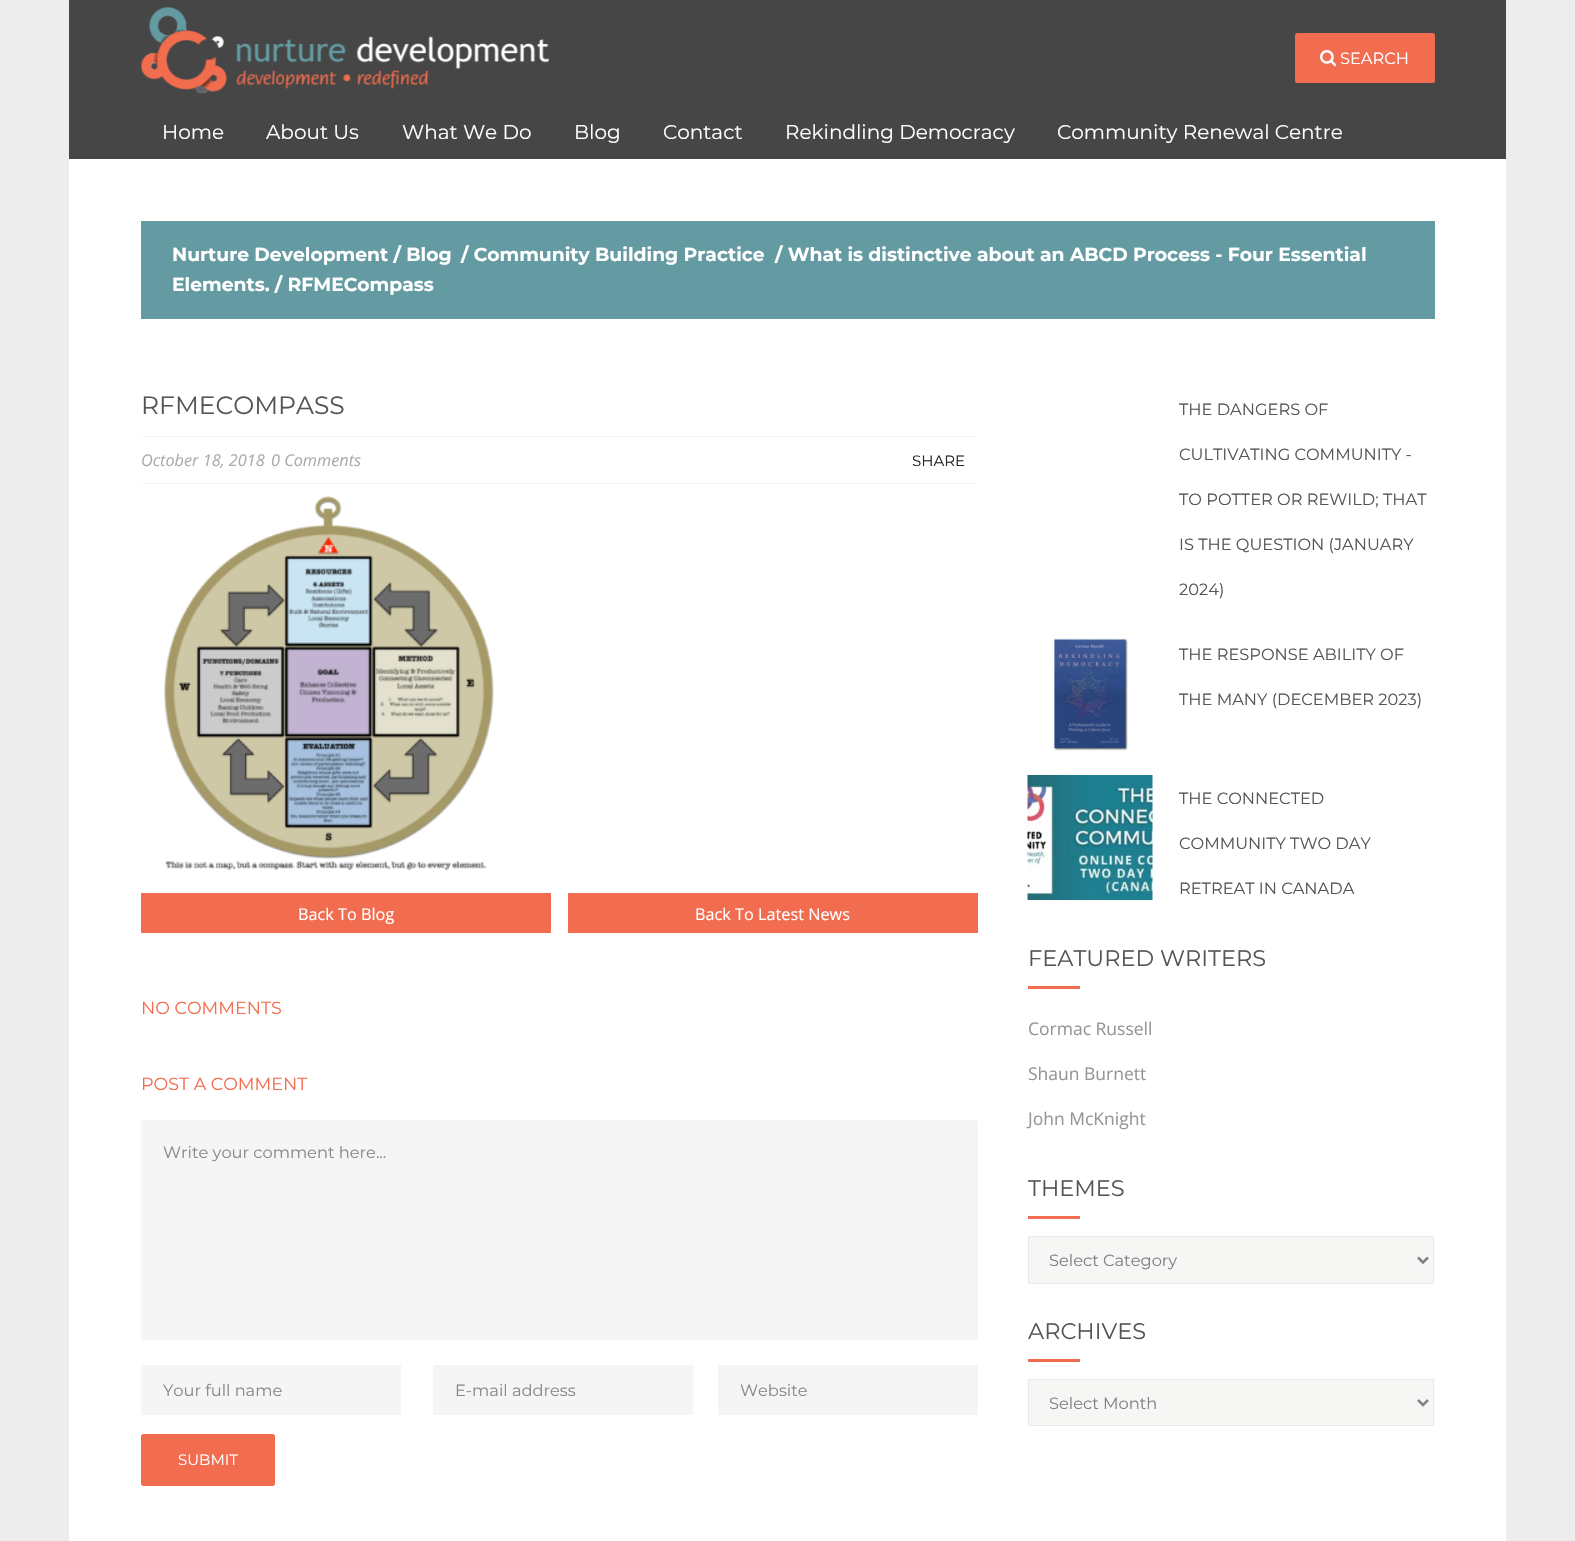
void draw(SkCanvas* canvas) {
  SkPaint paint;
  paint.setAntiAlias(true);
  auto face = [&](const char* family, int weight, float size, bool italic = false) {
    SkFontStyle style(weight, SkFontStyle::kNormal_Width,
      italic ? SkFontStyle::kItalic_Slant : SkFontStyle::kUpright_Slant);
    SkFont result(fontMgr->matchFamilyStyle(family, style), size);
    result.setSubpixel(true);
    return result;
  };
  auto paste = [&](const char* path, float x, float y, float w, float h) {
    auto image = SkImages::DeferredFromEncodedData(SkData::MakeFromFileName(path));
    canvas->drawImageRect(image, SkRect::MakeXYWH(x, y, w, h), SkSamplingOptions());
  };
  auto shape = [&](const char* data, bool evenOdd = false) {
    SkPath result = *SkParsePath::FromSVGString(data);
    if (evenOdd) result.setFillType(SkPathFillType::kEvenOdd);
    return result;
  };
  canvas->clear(0xffededed);
  paint.setColor(0xff464646);
  canvas->drawRect(SkRect::MakeXYWH(69, 0, 1437, 159), paint);
  paste("img/1.png", 140, 7, 410, 87);
  paint.setColor(0xfff26c4f);
  canvas->drawRoundRect(SkRect::MakeXYWH(1295, 33, 140, 50), 2.5f, 2.5f, paint);
  paste("img/2.png", 1320, 50, 17, 17);
  {
    const struct { float x, y, w, h; SkColor color; } items[] = {
      {69, 159, 1437, 1382, 0xffffffff},
      {141, 221, 1294, 98, 0xff649ba2},
      {141, 436, 837, 1, 0xfff6f5f5},
      {141, 483, 837, 1, 0xfff6f5f5},
    };
    for (auto [x, y, w, h, color] : items) {
      paint.setColor(color);
      canvas->drawRect(SkRect::MakeXYWH(x, y, w, h), paint);
    }
  }
  paste("img/3.png", 163, 496, 331, 375);
  paint.setColor(0xfff26c4f);
  canvas->drawRect(SkRect::MakeXYWH(141, 893, 410, 40), paint);
  canvas->drawRect(SkRect::MakeXYWH(568, 893, 410, 40), paint);
  paint.setColor(0xfff6f5f5);
  canvas->drawRoundRect(SkRect::MakeXYWH(141, 1120, 837, 220), 2.5f, 2.5f, paint);
  {
    const struct { float x, y, w, h; SkColor color; } items[] = {
      {141, 1365, 260, 50, 0xfff6f5f5},
      {433, 1365, 260, 50, 0xfff6f5f5},
      {718, 1365, 260, 50, 0xfff6f5f5},
    };
    for (auto [x, y, w, h, color] : items) {
      paint.setColor(color);
      canvas->drawRect(SkRect::MakeXYWH(x, y, w, h), paint);
    }
  }
  paint.setColor(0xfff26c4f);
  canvas->drawRoundRect(SkRect::MakeXYWH(141, 1434, 134, 52), 2.5f, 2.5f, paint);
  paste("img/4.png", 1053, 638, 75, 113);
  paste("img/5.png", 1027, 775, 126, 125);
  canvas->drawRect(SkRect::MakeXYWH(1028, 986, 52, 3), paint);
  canvas->drawRect(SkRect::MakeXYWH(1028, 1216, 52, 3), paint);
  paint.setColor(0xfff6f6f5);
  canvas->drawRect(SkRect::MakeXYWH(1028.5f, 1236.5f, 405, 47), paint);
  paint.setStroke(true);
  paint.setStrokeWidth(1);
  paint.setColor(0xffe9e9e9);
  canvas->drawRect(SkRect::MakeXYWH(1028.5f, 1236.5f, 405, 47), paint);
  paint.setStrokeWidth(2.5f);
  paint.setColor(0xff7f8385);
  canvas->drawPath(shape("M1418 1257.5L1423 1262.5L1428 1257.5"), paint);
  paint.setStroke(false);
  paint.setColor(0xfff26c4f);
  canvas->drawRect(SkRect::MakeXYWH(1028, 1359, 52, 3), paint);
  paint.setColor(0xfff6f6f5);
  canvas->drawRect(SkRect::MakeXYWH(1028.5f, 1379.5f, 405, 46), paint);
  paint.setStroke(true);
  paint.setStrokeWidth(1);
  paint.setColor(0xffe9e9e9);
  canvas->drawRect(SkRect::MakeXYWH(1028.5f, 1379.5f, 405, 46), paint);
  paint.setStrokeWidth(2.5f);
  paint.setColor(0xff7f8385);
  canvas->drawPath(shape("M1418 1400L1423 1405L1428 1400"), paint);
  auto f0 = face("Montserrat", 400, 16.25f);
  paint.setStroke(false);
  paint.setColor(0xffffffff);
  canvas->drawString("SEARCH", 1340, 64, f0, paint);
  auto f1 = face("Montserrat", 400, 20);
  {
    const struct { const char* s; float x, y; } items[] = {
      {"Home", 162, 139},
      {"About Us", 266, 139},
      {"What We Do", 402, 139},
      {"Blog", 574, 139},
      {"Contact", 663, 139},
      {"Rekindling Democracy", 785, 139},
      {"Community Renewal Centre", 1057, 139},
    };
    for (auto [s, x, y] : items) {
      canvas->drawString(s, x, y, f1, paint);
    }
  }
  auto f2 = face("Montserrat", 700, 18.75f);
  {
    const struct { const char* s; float x, y; } items[] = {
      {"Nurture Development / Blog", 172, 261},
      {"/ Community Building Practice", 461, 261},
      {"/ What is distinctive about an ABCD Process - Four Essential", 775, 261},
      {"Elements. / RFMECompass", 172, 291},
    };
    for (auto [s, x, y] : items) {
      canvas->drawString(s, x, y, f2, paint);
    }
  }
  auto f3 = face("Montserrat", 400, 25);
  paint.setColor(0xff555555);
  canvas->drawString("RFMECOMPASS", 141, 414, f3, paint);
  auto f4 = face("Open Sans", 400, 16.25f, true);
  paint.setColor(0xffacacac);
  canvas->drawString("October 18, 2018", 141, 466, f4, paint);
  canvas->drawString("0 Comments", 271, 466, f4, paint);
  auto f5 = face("Montserrat", 400, 15);
  paint.setColor(0xff252525);
  canvas->drawString("SHARE", 912, 466, f5, paint);
  auto f6 = face("Open Sans", 400, 16.25f);
  paint.setColor(0xffffffff);
  canvas->drawString("Back To Blog", 298, 920, f6, paint);
  canvas->drawString("Back To Latest News", 695, 920, f6, paint);
  auto f7 = face("Montserrat", 400, 17.5f);
  paint.setColor(0xfff26c4f);
  canvas->drawString("NO COMMENTS", 141, 1014, f7, paint);
  canvas->drawString("POST A COMMENT", 141, 1090, f7, paint);
  paint.setColor(0xff898989);
  {
    const struct { const char* s; float x, y; } items[] = {
      {"Write your comment here...", 163, 1158},
      {"Your full name", 163, 1396},
      {"E-mail address", 455, 1396},
      {"Website", 740, 1396},
    };
    for (auto [s, x, y] : items) {
      canvas->drawString(s, x, y, f0, paint);
    }
  }
  paint.setColor(0xffffffff);
  canvas->drawString("SUBMIT", 178, 1465, f5, paint);
  paint.setColor(0xff555555);
  {
    const struct { const char* s; float x, y; } items[] = {
      {"THE DANGERS OF", 1179, 415},
      {"CULTIVATING COMMUNITY -", 1179, 460},
      {"TO POTTER OR REWILD; THAT", 1179, 505},
      {"IS THE QUESTION (JANUARY", 1179, 550},
      {"2024)", 1179, 595},
      {"THE RESPONSE ABILITY OF", 1179, 660},
      {"THE MANY (DECEMBER 2023)", 1179, 705},
      {"THE CONNECTED", 1179, 804},
      {"COMMUNITY TWO DAY", 1179, 849},
      {"RETREAT IN CANADA", 1179, 894},
    };
    for (auto [s, x, y] : items) {
      canvas->drawString(s, x, y, f0, paint);
    }
  }
  auto f8 = face("Montserrat", 400, 22.5f);
  canvas->drawString("FEATURED WRITERS", 1028, 966, f8, paint);
  auto f9 = face("Open Sans", 400, 17.5f);
  paint.setColor(0xff959595);
  {
    const struct { const char* s; float x, y; } items[] = {
      {"Cormac Russell", 1028, 1035},
      {"Shaun Burnett", 1028, 1080},
      {"John McKnight", 1028, 1125},
    };
    for (auto [s, x, y] : items) {
      canvas->drawString(s, x, y, f9, paint);
    }
  }
  paint.setColor(0xff555555);
  canvas->drawString("THEMES", 1028, 1196, f8, paint);
  paint.setColor(0xff7f8385);
  canvas->drawString("Select Category", 1049, 1266, f0, paint);
  paint.setColor(0xff555555);
  canvas->drawString("ARCHIVES", 1028, 1339, f8, paint);
  paint.setColor(0xff7f8385);
  canvas->drawString("Select Month", 1049, 1409, f0, paint);
}
